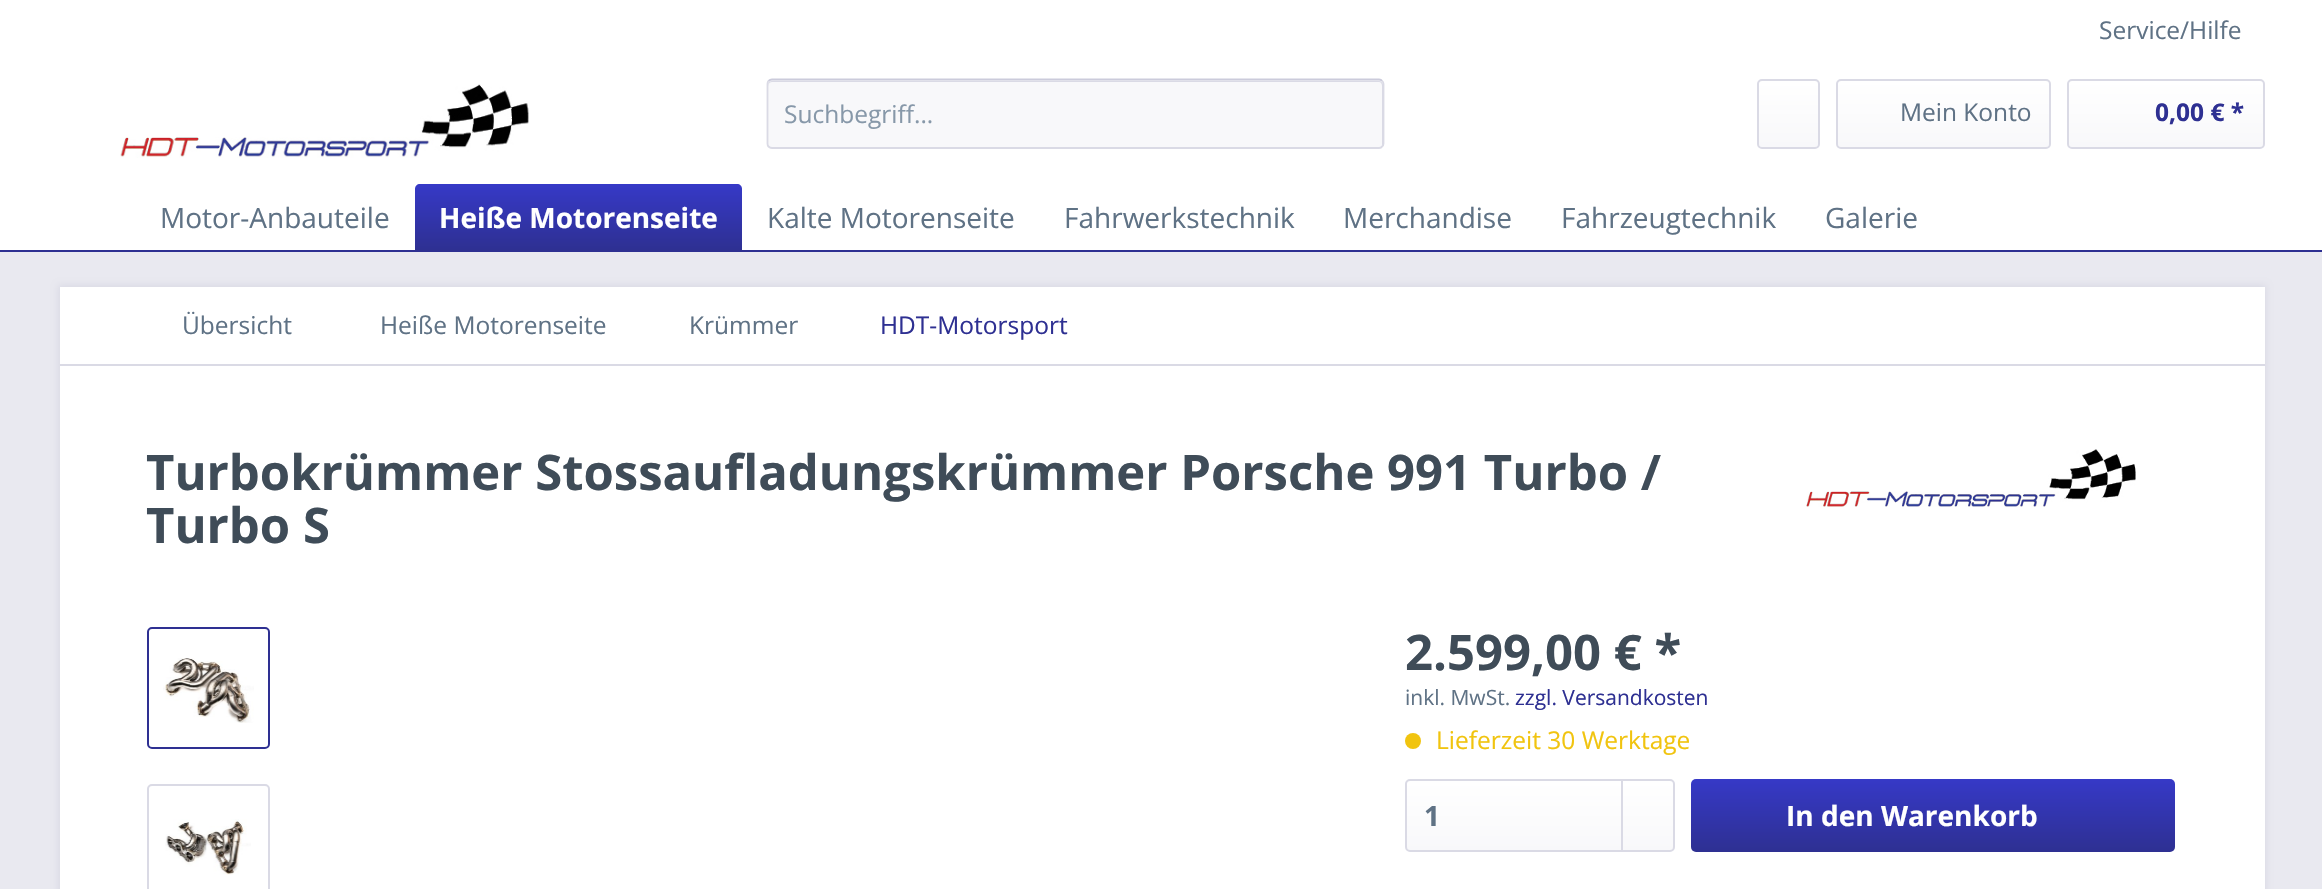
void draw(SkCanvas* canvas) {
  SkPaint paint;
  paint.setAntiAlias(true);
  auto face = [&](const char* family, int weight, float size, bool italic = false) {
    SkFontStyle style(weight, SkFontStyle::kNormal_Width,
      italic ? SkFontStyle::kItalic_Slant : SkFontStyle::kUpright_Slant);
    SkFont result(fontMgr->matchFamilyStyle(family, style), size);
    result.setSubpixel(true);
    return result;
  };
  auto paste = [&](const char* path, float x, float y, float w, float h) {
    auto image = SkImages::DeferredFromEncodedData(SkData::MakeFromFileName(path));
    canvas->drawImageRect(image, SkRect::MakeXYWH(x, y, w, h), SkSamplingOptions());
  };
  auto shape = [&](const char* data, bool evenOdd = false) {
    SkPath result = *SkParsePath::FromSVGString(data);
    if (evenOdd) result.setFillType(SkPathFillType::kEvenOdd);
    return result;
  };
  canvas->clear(0xffe9e9f0);
  paint.setColor(0xffffffff);
  canvas->drawRect(SkRect::MakeXYWH(0, 0, 2322, 250), paint);
  paste("img/1.png", 120, 84, 409, 74);
  paint.setColor(0xfff8f8fa);
  canvas->drawRoundRect(SkRect::MakeXYWH(767, 79, 617, 70), 5, 5, paint);
  paint.setColor(0xffdadae5);
  canvas->drawPath(shape("M772 82H1379C1381 82 1382 84 1382 86V146C1383 145 1383 144 1383 143V85C1383 83 1381 81 1379 81H772C770 81 768 83 768 85V86C768 84 770 82 772 82Z"), paint);
  paint.setStroke(true);
  paint.setStrokeWidth(1.8f);
  paint.setColor(0xffcbcbdb);
  canvas->drawPath(shape("M768.5 81C769.5 80 770.5 79.5 772 79.5H1379C1380 79.5 1381.5 80 1382 81"), paint);
  paint.setColor(0xffdadae5);
  canvas->drawPath(shape("M1382 81C1383 81.5 1383.5 83 1383.5 84V143.5C1383.5 144.5 1383 146 1382 146.5C1381.5 147.5 1380 148 1379 148H772C770.5 148 769.5 147.5 768.5 146.5C768 146 767.5 144.5 767.5 143.5V84C767.5 83 768 81.5 768.5 81"), paint);
  paint.setStroke(false);
  {
    const SkColor colors[] = {0xffffffff, 0xfff8f8fa};
    const float stops[] = {0, 1};
    const SkPoint ends[] = {{1789, 81}, {1789, 147}};
    paint.setShader(SkGradientShader::MakeLinear(ends, colors, stops, 2, SkTileMode::kClamp));
    paint.setAlpha(255);
  }
  canvas->drawRoundRect(SkRect::MakeXYWH(1759, 81, 59, 66), 4, 4, paint);
  paint.setStroke(true);
  paint.setStrokeWidth(2);
  paint.setShader(nullptr);
  paint.setColor(0xffdadae5);
  canvas->drawRoundRect(SkRect::MakeXYWH(1758, 80, 61, 68), 4, 4, paint);
  paint.setStroke(false);
  {
    const SkColor colors[] = {0xffffffff, 0xfff8f8fa};
    const float stops[] = {0, 1};
    const SkPoint ends[] = {{1943, 80}, {1943, 147}};
    paint.setShader(SkGradientShader::MakeLinear(ends, colors, stops, 2, SkTileMode::kClamp));
    paint.setAlpha(255);
  }
  canvas->drawRoundRect(SkRect::MakeXYWH(1838, 81, 211, 66), 4, 4, paint);
  paint.setStroke(true);
  paint.setShader(nullptr);
  paint.setColor(0xffdadae5);
  canvas->drawRoundRect(SkRect::MakeXYWH(1837, 80, 213, 68), 4, 4, paint);
  paint.setStroke(false);
  {
    const SkColor colors[] = {0xffffffff, 0xfff8f8fa};
    const float stops[] = {0, 1};
    const SkPoint ends[] = {{2166, 80}, {2166, 147}};
    paint.setShader(SkGradientShader::MakeLinear(ends, colors, stops, 2, SkTileMode::kClamp));
    paint.setAlpha(255);
  }
  canvas->drawRoundRect(SkRect::MakeXYWH(2069, 81, 194, 66), 4, 4, paint);
  paint.setStroke(true);
  paint.setShader(nullptr);
  paint.setColor(0xffdadae5);
  canvas->drawRoundRect(SkRect::MakeXYWH(2068, 80, 196, 68), 4, 4, paint);
  paint.setStroke(false);
  paint.setColor(0xff2e3092);
  canvas->drawRect(SkRect::MakeXYWH(0, 250, 2322, 2), paint);
  {
    const SkColor colors[] = {0xff3639c7, 0xff2e3092};
    const float stops[] = {0, 1};
    const SkPoint ends[] = {{578, 184}, {578, 250}};
    paint.setShader(SkGradientShader::MakeLinear(ends, colors, stops, 2, SkTileMode::kClamp));
    paint.setAlpha(255);
  }
  canvas->drawPath(shape("M420 184H737C740 184 742 186 742 189V250H415V189C415 186 417 184 420 184Z"), paint);
  paint.setShader(nullptr);
  paint.setColor(0xffdadae5);
  paint.setMaskFilter(SkMaskFilter::MakeBlur(kNormal_SkBlurStyle, 3.5f));
  canvas->drawRect(SkRect::MakeXYWH(58, 285, 2208, 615), paint);
  paint.setMaskFilter(nullptr);
  paint.setColor(0xffffffff);
  canvas->drawRect(SkRect::MakeXYWH(60, 287, 2205, 602), paint);
  paint.setColor(0xffdadae5);
  canvas->drawRect(SkRect::MakeXYWH(60, 364, 2205, 2), paint);
  paste("img/2.png", 1806, 449, 330, 58);
  paint.setStroke(true);
  paint.setColor(0xff2e3092);
  canvas->drawRoundRect(SkRect::MakeXYWH(148, 628, 121, 120), 4, 4, paint);
  paste("img/3.png", 163, 658, 91, 65);
  paint.setColor(0xffdadae5);
  canvas->drawRoundRect(SkRect::MakeXYWH(148, 785, 121, 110), 4, 4, paint);
  paste("img/4.png", 165, 819, 86, 56);
  paint.setStroke(false);
  paint.setColor(0xfff1c40f);
  canvas->drawCircle(1413, 741, 8, paint);
  {
    const SkColor colors[] = {0xffffffff, 0xfff8f8fa};
    const float stops[] = {0, 1};
    const SkPoint ends[] = {{1540, 781}, {1540, 851}};
    paint.setShader(SkGradientShader::MakeLinear(ends, colors, stops, 2, SkTileMode::kClamp));
    paint.setAlpha(255);
  }
  canvas->drawRoundRect(SkRect::MakeXYWH(1407, 781, 266, 70), 4, 4, paint);
  paint.setStroke(true);
  paint.setShader(nullptr);
  paint.setColor(0xffdadae5);
  canvas->drawRoundRect(SkRect::MakeXYWH(1406, 780, 268, 71), 4, 4, paint);
  paint.setStroke(false);
  canvas->drawRect(SkRect::MakeXYWH(1621, 781, 2, 70), paint);
  {
    const SkColor colors[] = {0xff3639c7, 0xff2e3092};
    const float stops[] = {0, 1};
    const SkPoint ends[] = {{1933, 779}, {1933, 852}};
    paint.setShader(SkGradientShader::MakeLinear(ends, colors, stops, 2, SkTileMode::kClamp));
    paint.setAlpha(255);
  }
  canvas->drawRoundRect(SkRect::MakeXYWH(1691, 779, 484, 73), 5, 5, paint);
  auto f0 = face("Open Sans", 400, 24.5f);
  paint.setShader(nullptr);
  paint.setColor(0xff5f7285);
  canvas->drawString("Service/Hilfe", 2099, 39, f0, paint);
  paint.setColor(0xff8798a9);
  canvas->drawString("Suchbegriff...", 784, 123, f0, paint);
  paint.setColor(0xff5f7285);
  canvas->drawString("Mein Konto", 1900, 121, f0, paint);
  auto f1 = face("Open Sans", 700, 24.5f);
  paint.setColor(0xff2e3092);
  canvas->drawString("0,00 € *", 2155, 121, f1, paint);
  auto f2 = face("Open Sans", 400, 28);
  paint.setColor(0xff5f7285);
  canvas->drawString("Motor-Anbauteile", 160, 228, f2, paint);
  auto f3 = face("Open Sans", 700, 28);
  paint.setColor(0xffffffff);
  canvas->drawString("Heiße Motorenseite", 439, 228, f3, paint);
  paint.setColor(0xff5f7285);
  {
    const struct { const char* s; float x, y; } items[] = {
      {"Kalte Motorenseite", 767, 228},
      {"Fahrwerkstechnik", 1064, 228},
      {"Merchandise", 1343, 228},
      {"Fahrzeugtechnik", 1561, 228},
      {"Galerie", 1825, 228},
    };
    for (auto [s, x, y] : items) {
      canvas->drawString(s, x, y, f2, paint);
    }
  }
  {
    const struct { const char* s; float x, y; } items[] = {
      {"Übersicht", 182, 334},
      {"Heiße Motorenseite", 380, 334},
      {"Krümmer", 689, 334},
    };
    for (auto [s, x, y] : items) {
      canvas->drawString(s, x, y, f0, paint);
    }
  }
  paint.setColor(0xff2e3092);
  canvas->drawString("HDT-Motorsport", 880, 334, f0, paint);
  auto f4 = face("Open Sans", 700, 49);
  paint.setColor(0xff3f4c58);
  {
    const struct { const char* s; float x, y; } items[] = {
      {"Turbokrümmer Stossaufladungskrümmer Porsche 991 Turbo /", 146, 490},
      {"Turbo S", 146, 543},
      {"2.599,00 € *", 1405, 670},
    };
    for (auto [s, x, y] : items) {
      canvas->drawString(s, x, y, f4, paint);
    }
  }
  auto f5 = face("Open Sans", 400, 21);
  paint.setColor(0xff5f7285);
  canvas->drawString("inkl. MwSt.", 1405, 705, f5, paint);
  paint.setColor(0xff2e3092);
  canvas->drawString("zzgl. Versandkosten", 1515, 705, f5, paint);
  paint.setColor(0xfff1c40f);
  canvas->drawString("Lieferzeit 30 Werktage", 1436, 749, f0, paint);
  paint.setColor(0xff5f7285);
  canvas->drawString("1", 1424, 826, f3, paint);
  paint.setColor(0xffffffff);
  canvas->drawString("In den Warenkorb", 1786, 826, f3, paint);
}
